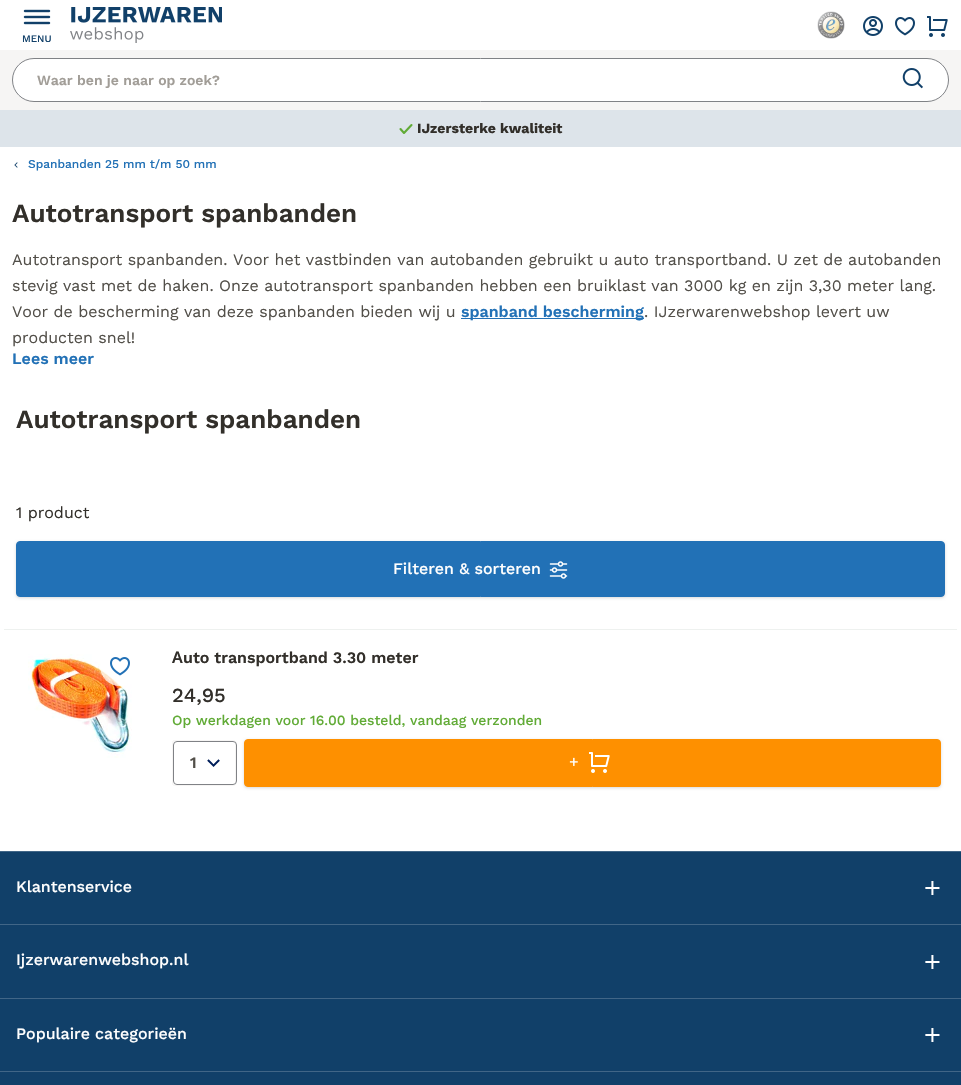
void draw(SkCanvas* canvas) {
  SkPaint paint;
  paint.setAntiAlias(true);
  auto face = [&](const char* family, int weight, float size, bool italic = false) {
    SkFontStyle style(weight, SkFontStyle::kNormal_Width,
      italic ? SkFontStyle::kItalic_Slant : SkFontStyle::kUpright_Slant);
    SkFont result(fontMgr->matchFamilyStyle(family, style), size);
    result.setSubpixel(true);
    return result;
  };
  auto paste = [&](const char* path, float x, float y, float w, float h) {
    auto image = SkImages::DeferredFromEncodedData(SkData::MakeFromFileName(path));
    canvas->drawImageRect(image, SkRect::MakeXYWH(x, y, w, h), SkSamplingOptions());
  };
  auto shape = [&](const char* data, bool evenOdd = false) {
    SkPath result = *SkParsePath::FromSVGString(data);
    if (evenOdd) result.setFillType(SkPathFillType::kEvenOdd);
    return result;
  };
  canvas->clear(0xffffffff);
  paste("img/1.png", 23, 9, 28, 16);
  paste("img/2.png", 70, 7, 152, 36);
  paste("img/3.png", 817, 11, 28, 28);
  paste("img/4.png", 863, 16, 20, 20);
  paste("img/5.png", 895, 17, 20, 19);
  paste("img/6.png", 927, 16, 21, 21);
  paint.setColor(0xfff6f5f4);
  canvas->drawRect(SkRect::MakeXYWH(0, 50, 961, 60), paint);
  paint.setColor(0xffffffff);
  canvas->drawRoundRect(SkRect::MakeXYWH(12.5f, 58.5f, 936, 43), 21.5f, 21.5f, paint);
  paint.setStroke(true);
  paint.setStrokeWidth(1);
  paint.setColor(0xff808286);
  canvas->drawRoundRect(SkRect::MakeXYWH(12.5f, 58.5f, 936, 43), 21.5f, 21.5f, paint);
  paste("img/7.png", 902, 68, 21, 21);
  paint.setStroke(false);
  paint.setColor(0xffdde4ea);
  canvas->drawRect(SkRect::MakeXYWH(0, 110, 961, 37), paint);
  paint.setStroke(true);
  paint.setStrokeWidth(2.1f);
  paint.setStrokeCap(SkPaint::kRound_Cap);
  paint.setStrokeJoin(SkPaint::kRound_Join);
  paint.setColor(0xff61ab36);
  canvas->drawPath(shape("M400.5 129L404 133L411.5 125"), paint);
  paste("img/8.png", 14, 162, 4, 6);
  paint.setStroke(false);
  paint.setColor(0xff2271b6);
  canvas->drawRect(SkRect::MakeXYWH(461, 318, 183, 1), paint);
  paint.setColor(0x26000000);
  paint.setMaskFilter(SkMaskFilter::MakeBlur(kNormal_SkBlurStyle, 1.5f));
  canvas->drawRoundRect(SkRect::MakeXYWH(16, 542, 929, 56), 4, 4, paint);
  paint.setMaskFilter(nullptr);
  paint.setColor(0xff2271b6);
  canvas->drawRoundRect(SkRect::MakeXYWH(16.5f, 541.5f, 928, 55), 3.5f, 3.5f, paint);
  paint.setStroke(true);
  paint.setStrokeWidth(1);
  paint.setStrokeCap(SkPaint::kButt_Cap);
  paint.setStrokeJoin(SkPaint::kMiter_Join);
  canvas->drawRoundRect(SkRect::MakeXYWH(16.5f, 541.5f, 928, 55), 3.5f, 3.5f, paint);
  paste("img/9.png", 549, 561, 19, 18);
  paint.setStroke(false);
  paint.setColor(0xffeef1ef);
  canvas->drawRect(SkRect::MakeXYWH(4, 629, 953, 1), paint);
  paste("img/13.png", 28, 654, 104, 104);
  paint.setColor(0xb8ffffff);
  canvas->drawCircle(120, 666, 20, paint);
  paste("img/10.png", 110, 657, 20, 19);
  paint.setStroke(true);
  paint.setColor(0xfff6f5f4);
  canvas->drawRoundRect(SkRect::MakeXYWH(172.5f, 740.5f, 63, 45), 2, 2, paint);
  paste("img/11.png", 207, 759, 13, 8);
  paint.setColor(0xff808286);
  canvas->drawRoundRect(SkRect::MakeXYWH(173.5f, 741.5f, 63, 43), 3.5f, 3.5f, paint);
  paint.setStroke(false);
  paint.setColor(0x26000000);
  paint.setMaskFilter(SkMaskFilter::MakeBlur(kNormal_SkBlurStyle, 1.5f));
  canvas->drawRoundRect(SkRect::MakeXYWH(244, 740, 697, 48), 4, 4, paint);
  paint.setMaskFilter(nullptr);
  paint.setColor(0xfffe9000);
  canvas->drawRoundRect(SkRect::MakeXYWH(244.5f, 739.5f, 696, 47), 3.5f, 3.5f, paint);
  paint.setStroke(true);
  canvas->drawRoundRect(SkRect::MakeXYWH(244.5f, 739.5f, 696, 47), 3.5f, 3.5f, paint);
  paste("img/12.png", 569, 752, 41, 21);
  paint.setStroke(false);
  paint.setColor(0xff114069);
  canvas->drawRect(SkRect::MakeXYWH(0, 852, 961, 233), paint);
  paint.setColor(0xff416687);
  canvas->drawRect(SkRect::MakeXYWH(0, 851, 961, 1), paint);
  paste("img/14.png", 925, 881, 15, 14);
  canvas->drawRect(SkRect::MakeXYWH(0, 924, 961, 1), paint);
  paste("img/14.png", 925, 955, 15, 14);
  canvas->drawRect(SkRect::MakeXYWH(0, 998, 961, 1), paint);
  paste("img/14.png", 925, 1028, 15, 14);
  canvas->drawRect(SkRect::MakeXYWH(0, 1071, 961, 1), paint);
  auto f0 = face("Work Sans", 500, 10);
  paint.setColor(0xff114069);
  canvas->drawString("MENU", 22, 42, f0, paint);
  auto f1 = face("Work Sans", 600, 14);
  paint.setColor(0xffa19d97);
  canvas->drawString("Waar ben je naar op zoek?", 37, 85, f1, paint);
  auto f2 = face("Work Sans", 700, 14);
  paint.setColor(0xff322f2a);
  canvas->drawString("IJzersterke kwaliteit", 417, 133, f2, paint);
  auto f3 = face("Work Sans", 500, 12);
  paint.setColor(0xff2271b6);
  canvas->drawString("Spanbanden 25 mm t/m 50 mm", 28, 168, f3, paint);
  auto f4 = face("Work Sans", 600, 26);
  paint.setColor(0xff322f2a);
  canvas->drawString("Autotransport spanbanden", 12, 222, f4, paint);
  auto f5 = face("Work Sans", 400, 16);
  paint.setColor(0xff524f49);
  {
    const struct { const char* s; float x, y; } items[] = {
      {"Autotransport spanbanden. Voor het vastbinden van autobanden gebruikt u auto transportband. U zet de autobanden", 12, 265},
      {"stevig vast met de haken. Onze autotransport spanbanden hebben een bruiklast van 3000 kg en zijn 3,30 meter lang.", 12, 291},
      {"Voor de bescherming van deze spanbanden bieden wij u", 12, 317},
    };
    for (auto [s, x, y] : items) {
      canvas->drawString(s, x, y, f5, paint);
    }
  }
  auto f6 = face("Work Sans", 600, 16);
  paint.setColor(0xff2271b6);
  canvas->drawString("spanband bescherming", 461, 317, f6, paint);
  paint.setColor(0xff524f49);
  canvas->drawString(". IJzerwarenwebshop levert uw", 644, 317, f5, paint);
  canvas->drawString("producten snel!", 12, 343, f5, paint);
  paint.setColor(0xff2271b6);
  canvas->drawString("Lees meer", 12, 364, f6, paint);
  paint.setColor(0xff322f2a);
  canvas->drawString("Autotransport spanbanden", 16, 428, f4, paint);
  canvas->drawString("1 product", 16, 518, f5, paint);
  auto f7 = face("Work Sans", 500, 16);
  paint.setColor(0xffffffff);
  canvas->drawString("Filteren & sorteren", 393, 574, f7, paint);
  auto f8 = face("Noto Sans", 600, 16);
  paint.setColor(0xff322f2a);
  canvas->drawString("A", 172, 663, f8, paint);
  canvas->drawString("uto transportband 3.30 meter", 183, 663, f6, paint);
  auto f9 = face("Work Sans", 500, 20);
  canvas->drawString("24,95", 172, 702, f9, paint);
  auto f10 = face("Work Sans", 500, 14);
  paint.setColor(0xff61ab36);
  canvas->drawString("Op werkdagen voor 16.00 besteld, vandaag verzonden", 172, 725, f10, paint);
  paint.setColor(0xff524f49);
  canvas->drawString("1", 190, 768, f6, paint);
  paint.setColor(0xffffffff);
  {
    const struct { const char* s; float x, y; } items[] = {
      {"Klantenservice", 16, 892},
      {"Ijzerwarenwebshop.nl", 16, 965},
      {"Populaire categorieën", 16, 1039},
    };
    for (auto [s, x, y] : items) {
      canvas->drawString(s, x, y, f7, paint);
    }
  }
}
